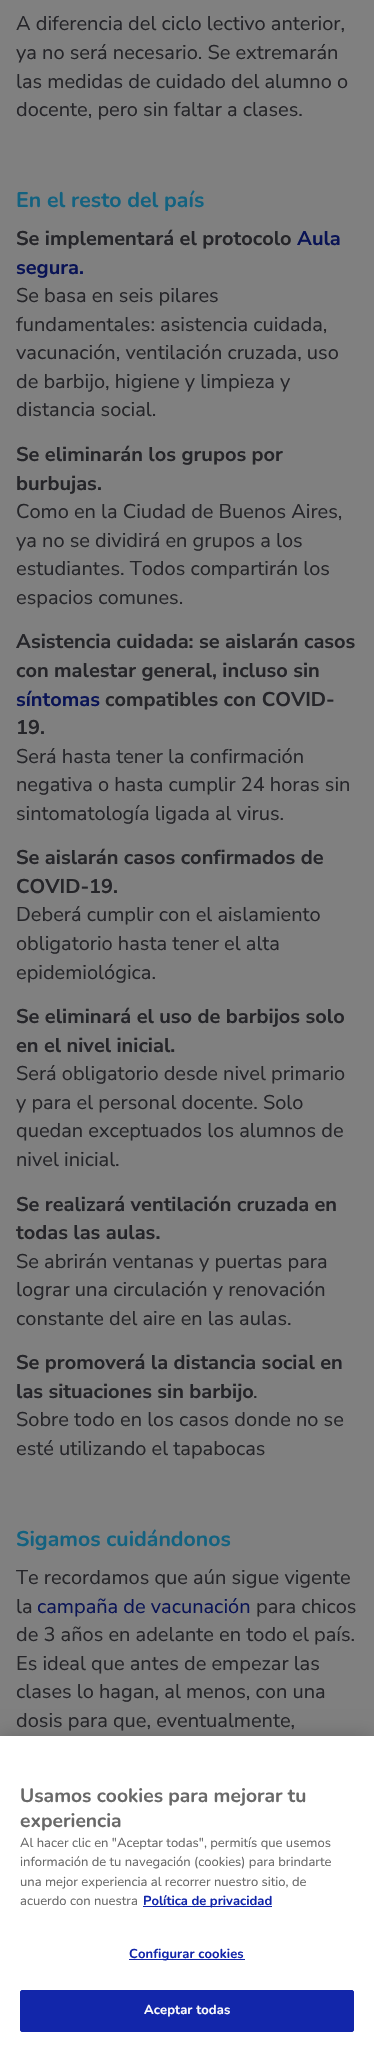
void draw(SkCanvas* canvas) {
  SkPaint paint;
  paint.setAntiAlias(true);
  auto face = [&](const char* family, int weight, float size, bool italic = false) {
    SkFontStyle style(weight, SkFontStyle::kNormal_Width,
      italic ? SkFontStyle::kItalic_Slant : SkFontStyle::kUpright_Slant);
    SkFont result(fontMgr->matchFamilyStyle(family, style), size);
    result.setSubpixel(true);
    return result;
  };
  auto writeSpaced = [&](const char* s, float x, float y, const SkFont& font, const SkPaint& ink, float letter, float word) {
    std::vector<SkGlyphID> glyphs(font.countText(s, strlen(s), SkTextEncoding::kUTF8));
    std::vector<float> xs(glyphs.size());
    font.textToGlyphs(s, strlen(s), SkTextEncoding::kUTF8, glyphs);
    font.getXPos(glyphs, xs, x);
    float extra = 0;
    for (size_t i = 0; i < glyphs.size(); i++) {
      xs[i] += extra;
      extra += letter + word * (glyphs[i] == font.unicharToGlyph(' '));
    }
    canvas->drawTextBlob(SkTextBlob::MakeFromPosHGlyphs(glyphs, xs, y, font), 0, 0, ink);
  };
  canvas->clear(0xff808080);
  paint.setColor(0x33000000);
  paint.setMaskFilter(SkMaskFilter::MakeBlur(kNormal_SkBlurStyle, 9));
  canvas->drawRect(SkRect::MakeXYWH(0, 1736, 374, 312), paint);
  paint.setMaskFilter(nullptr);
  {
    const struct { float x, y, w, h; SkColor color; } items[] = {
      {0, 1736, 374, 312, 0xffffffff},
      {143, 1906, 129, 1, 0xff1226aa},
      {129, 1959, 116, 1, 0xff1226aa},
    };
    for (auto [x, y, w, h, color] : items) {
      paint.setColor(color);
      canvas->drawRect(SkRect::MakeXYWH(x, y, w, h), paint);
    }
  }
  canvas->drawRoundRect(SkRect::MakeXYWH(20.5f, 1990.5f, 333, 41), 1.5f, 1.5f, paint);
  paint.setStroke(true);
  paint.setStrokeWidth(1);
  canvas->drawRoundRect(SkRect::MakeXYWH(20.5f, 1990.5f, 333, 41), 1.5f, 1.5f, paint);
  auto f0 = face("Nunito Sans", 400, 20);
  paint.setStroke(false);
  paint.setColor(0xff252529);
  {
    const struct { const char* s; float x, y; } items[] = {
      {"A diferencia del ciclo lectivo anterior,", 16, 30},
      {"ya no será necesario. Se extremarán", 16, 59},
      {"las medidas de cuidado del alumno o", 16, 88},
      {"docente, pero sin faltar a clases.", 16, 116},
    };
    for (auto [s, x, y] : items) {
      canvas->drawString(s, x, y, f0, paint);
    }
  }
  auto f1 = face("Nunito", 700, 21.25f);
  paint.setColor(0xff136280);
  canvas->drawString("En el resto del país", 16, 207, f1, paint);
  auto f2 = face("Nunito Sans", 700, 20);
  paint.setColor(0xff252529);
  canvas->drawString("Se implementará el protocolo", 16, 245, f2, paint);
  paint.setColor(0xff091355);
  canvas->drawString("Aula", 297, 245, f2, paint);
  canvas->drawString("segura.", 16, 274, f2, paint);
  paint.setColor(0xff252529);
  {
    const struct { const char* s; float x, y; } items[] = {
      {"Se basa en seis pilares", 16, 302},
      {"fundamentales: asistencia cuidada,", 16, 331},
      {"vacunación, ventilación cruzada, uso", 16, 359},
      {"de barbijo, higiene y limpieza y", 16, 388},
      {"distancia social.", 16, 416},
    };
    for (auto [s, x, y] : items) {
      canvas->drawString(s, x, y, f0, paint);
    }
  }
  canvas->drawString("Se eliminarán los grupos por", 16, 461, f2, paint);
  canvas->drawString("burbujas.", 16, 490, f2, paint);
  {
    const struct { const char* s; float x, y; } items[] = {
      {"Como en la Ciudad de Buenos Aires,", 16, 518},
      {"ya no se dividirá en grupos a los", 16, 547},
      {"estudiantes. Todos compartirán los", 16, 575},
      {"espacios comunes.", 16, 604},
    };
    for (auto [s, x, y] : items) {
      canvas->drawString(s, x, y, f0, paint);
    }
  }
  canvas->drawString("Asistencia cuidada: se aislarán casos", 16, 648, f2, paint);
  canvas->drawString("con malestar general, incluso sin", 16, 677, f2, paint);
  paint.setColor(0xff091355);
  canvas->drawString("síntomas", 16, 706, f2, paint);
  paint.setColor(0xff252529);
  canvas->drawString("compatibles con COVID-", 105, 706, f2, paint);
  canvas->drawString("19.", 16, 734, f2, paint);
  {
    const struct { const char* s; float x, y; } items[] = {
      {"Será hasta tener la confirmación", 16, 763},
      {"negativa o hasta cumplir 24 horas sin", 16, 791},
      {"sintomatología ligada al virus.", 16, 820},
    };
    for (auto [s, x, y] : items) {
      canvas->drawString(s, x, y, f0, paint);
    }
  }
  canvas->drawString("Se aislarán casos confirmados de", 16, 864, f2, paint);
  canvas->drawString("COVID-19.", 16, 893, f2, paint);
  {
    const struct { const char* s; float x, y; } items[] = {
      {"Deberá cumplir con el aislamiento", 16, 921},
      {"obligatorio hasta tener el alta", 16, 950},
      {"epidemiológica.", 16, 979},
    };
    for (auto [s, x, y] : items) {
      canvas->drawString(s, x, y, f0, paint);
    }
  }
  canvas->drawString("Se eliminará el uso de barbijos solo", 16, 1023, f2, paint);
  canvas->drawString("en el nivel inicial.", 16, 1052, f2, paint);
  {
    const struct { const char* s; float x, y; } items[] = {
      {"Será obligatorio desde nivel primario", 16, 1080},
      {"y para el personal docente. Solo", 16, 1109},
      {"quedan exceptuados los alumnos de", 16, 1137},
      {"nivel inicial.", 16, 1166},
    };
    for (auto [s, x, y] : items) {
      canvas->drawString(s, x, y, f0, paint);
    }
  }
  canvas->drawString("Se realizará ventilación cruzada en", 16, 1211, f2, paint);
  canvas->drawString("todas las aulas.", 16, 1239, f2, paint);
  {
    const struct { const char* s; float x, y; } items[] = {
      {"Se abrirán ventanas y puertas para", 16, 1268},
      {"lograr una circulación y renovación", 16, 1296},
      {"constante del aire en las aulas.", 16, 1325},
    };
    for (auto [s, x, y] : items) {
      canvas->drawString(s, x, y, f0, paint);
    }
  }
  canvas->drawString("Se promoverá la distancia social en", 16, 1369, f2, paint);
  canvas->drawString("las situaciones sin barbijo", 16, 1398, f2, paint);
  {
    const struct { const char* s; float x, y; } items[] = {
      {".", 253, 1398},
      {"Sobre todo en los casos donde no se", 16, 1426},
      {"esté utilizando el tapabocas", 16, 1455},
    };
    for (auto [s, x, y] : items) {
      canvas->drawString(s, x, y, f0, paint);
    }
  }
  paint.setColor(0xff136280);
  canvas->drawString("Sigamos cuidándonos", 16, 1546, f1, paint);
  paint.setColor(0xff252529);
  canvas->drawString("Te recordamos que aún sigue vigente", 16, 1584, f0, paint);
  canvas->drawString("la", 16, 1613, f0, paint);
  paint.setColor(0xff091355);
  canvas->drawString("campaña de vacunación", 37, 1613, f0, paint);
  paint.setColor(0xff252529);
  {
    const struct { const char* s; float x, y; } items[] = {
      {"para chicos", 256, 1613},
      {"de 3 años en adelante en todo el país.", 16, 1641},
      {"Es ideal que antes de empezar las", 16, 1670},
      {"clases lo hagan, al menos, con una", 16, 1698},
      {"dosis para que, eventualmente,", 16, 1727},
    };
    for (auto [s, x, y] : items) {
      canvas->drawString(s, x, y, f0, paint);
    }
  }
  auto f3 = face("Nunito", 700, 19.25f);
  paint.setColor(0xff696969);
  canvas->drawString("Usamos cookies para mejorar tu", 20, 1802, f3, paint);
  canvas->drawString("experiencia", 20, 1827, f3, paint);
  auto f4 = face("Nunito", 400, 13);
  {
    const struct { const char* s; float x, y; } items[] = {
      {"Al hacer clic en \"Aceptar todas\", permitís que usemos", 20, 1847},
      {"información de tu navegación (cookies) para brindarte", 20, 1866},
      {"una mejor experiencia al recorrer nuestro sitio, de", 20, 1886},
      {"acuerdo con nuestra", 20, 1905},
    };
    for (auto [s, x, y] : items) {
      canvas->drawString(s, x, y, f4, paint);
    }
  }
  auto f5 = face("Nunito", 700, 13);
  paint.setColor(0xff1226aa);
  canvas->drawString("Política de privacidad", 143, 1905, f5, paint);
  writeSpaced("Configurar cookies", 129, 1958, f5, paint, 0.1f, 0);
  paint.setColor(0xfffcfcfc);
  writeSpaced("Aceptar todas", 144, 2014, f5, paint, 0.1f, 0);
}
